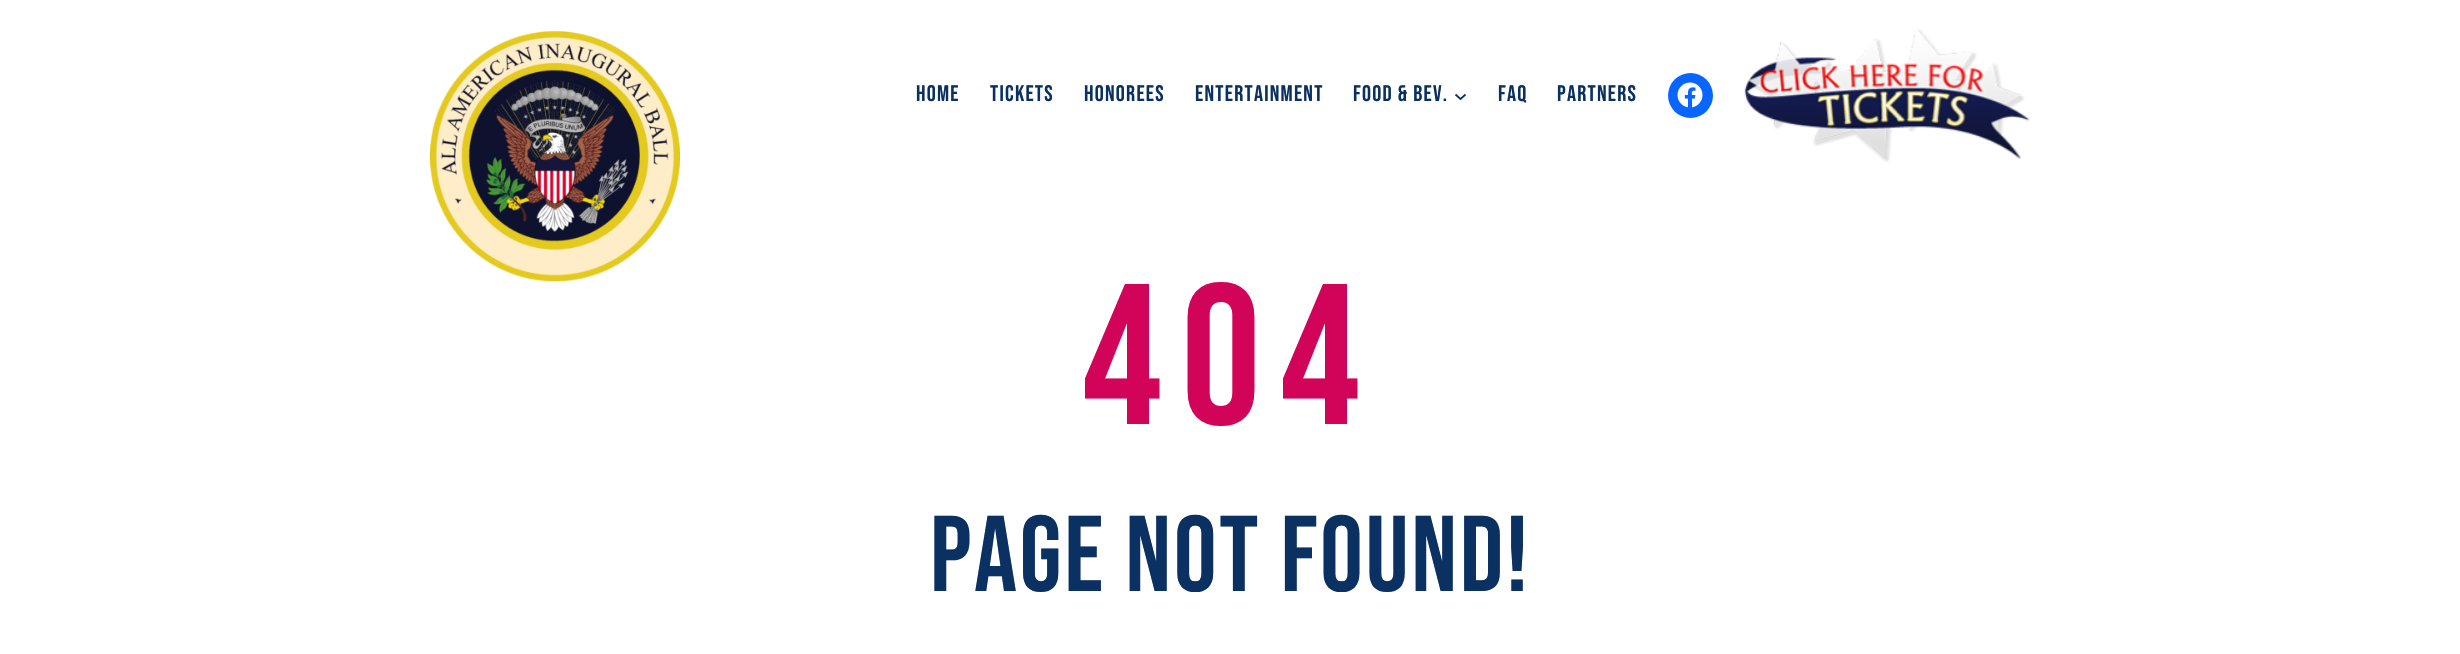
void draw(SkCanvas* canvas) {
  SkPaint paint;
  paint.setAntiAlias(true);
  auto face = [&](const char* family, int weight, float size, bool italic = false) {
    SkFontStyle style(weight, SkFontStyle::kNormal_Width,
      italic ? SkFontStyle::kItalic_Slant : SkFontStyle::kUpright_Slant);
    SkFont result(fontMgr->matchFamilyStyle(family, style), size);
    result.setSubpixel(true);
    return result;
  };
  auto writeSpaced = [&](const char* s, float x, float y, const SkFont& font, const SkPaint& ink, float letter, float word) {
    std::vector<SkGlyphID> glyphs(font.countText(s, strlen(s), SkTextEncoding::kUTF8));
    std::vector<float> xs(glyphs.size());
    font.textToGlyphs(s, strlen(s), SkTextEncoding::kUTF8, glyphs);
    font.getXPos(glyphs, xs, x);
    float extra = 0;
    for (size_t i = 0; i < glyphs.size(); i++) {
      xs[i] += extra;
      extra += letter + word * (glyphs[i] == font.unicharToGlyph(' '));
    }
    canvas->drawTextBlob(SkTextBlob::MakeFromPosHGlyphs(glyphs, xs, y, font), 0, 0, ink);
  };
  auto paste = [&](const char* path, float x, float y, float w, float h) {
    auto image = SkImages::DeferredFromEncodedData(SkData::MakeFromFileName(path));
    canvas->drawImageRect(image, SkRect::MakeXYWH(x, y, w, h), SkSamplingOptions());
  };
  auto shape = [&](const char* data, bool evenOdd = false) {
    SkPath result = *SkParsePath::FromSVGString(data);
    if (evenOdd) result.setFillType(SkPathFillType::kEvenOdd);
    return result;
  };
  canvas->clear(0xffffffff);
  paste("img/1.png", 430, 31, 250, 251);
  paint.setStroke(true);
  paint.setStrokeWidth(1.7f);
  paint.setColor(0xff0a3161);
  canvas->drawPath(shape("M1455.5 94.5L1460.5 99L1465.5 94.5"), paint);
  paint.setStroke(false);
  paint.setColor(0xff0866ff);
  canvas->drawCircle(1690.5f, 95.5f, 22.5f, paint);
  paste("img/2.png", 1677, 82, 26, 26);
  paste("img/3.png", 1744, 28, 286, 134);
  auto f0 = face("Bebas Neue", 400, 22.5f);
  paint.setColor(0xff0a3161);
  {
    const struct { const char* s; float x, y; } items[] = {
      {"Home", 916, 101},
      {"TICKETS", 990, 101},
      {"Honorees", 1084, 101},
      {"Entertainment", 1195, 101},
      {"Food & Bev.", 1353, 101},
      {"FAQ", 1498, 101},
      {"Partners", 1557, 101},
    };
    for (auto [s, x, y] : items) {
      writeSpaced(s, x, y, f0, paint, 1.25f, 0);
    }
  }
  auto f1 = face("Bebas Neue", 400, 200);
  paint.setColor(0xffd10459);
  writeSpaced("404", 1082, 424, f1, paint, 19, 0);
  auto f2 = face("Bebas Neue", 400, 107.5f);
  paint.setColor(0xff0a3161);
  writeSpaced("Page not found!", 930, 591, f2, paint, 2.5f, 0);
}
